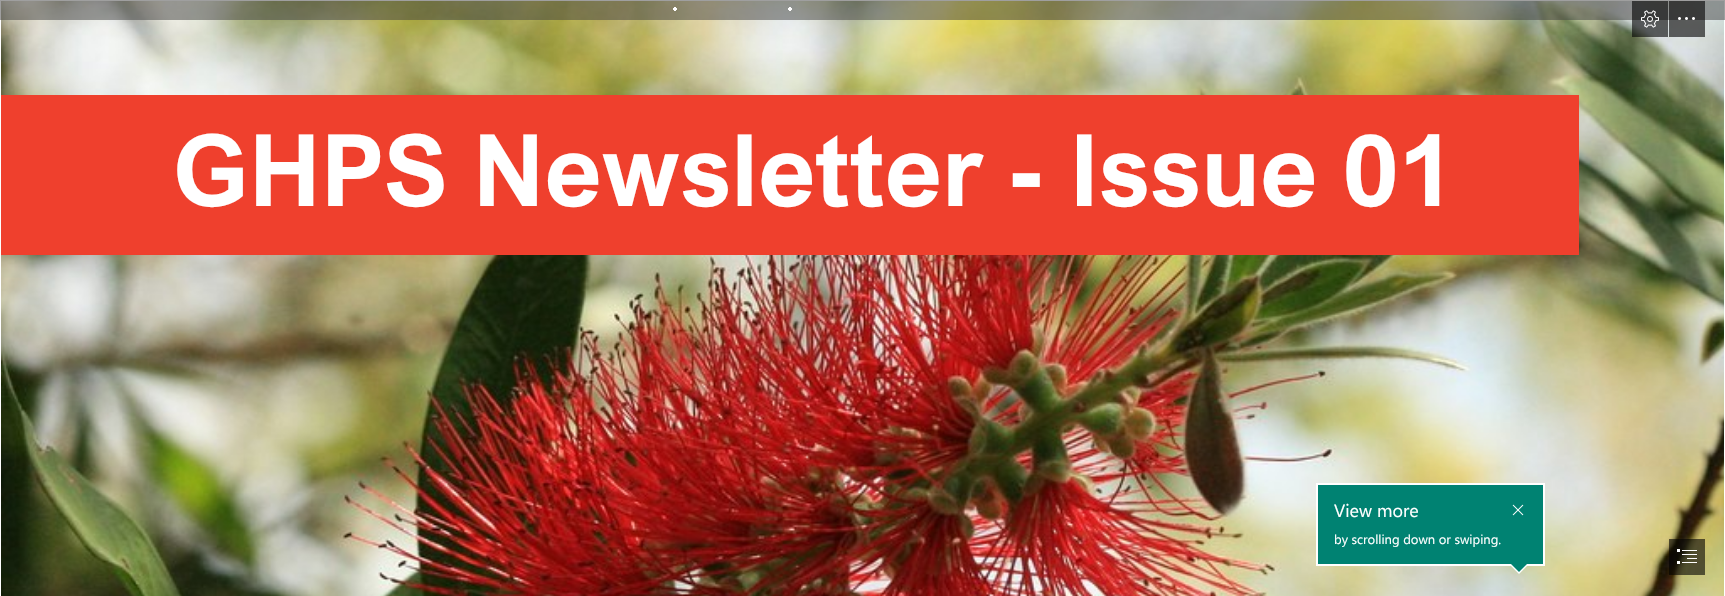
void draw(SkCanvas* canvas) {
  SkPaint paint;
  paint.setAntiAlias(true);
  auto face = [&](const char* family, int weight, float size, bool italic = false) {
    SkFontStyle style(weight, SkFontStyle::kNormal_Width,
      italic ? SkFontStyle::kItalic_Slant : SkFontStyle::kUpright_Slant);
    SkFont result(fontMgr->matchFamilyStyle(family, style), size);
    result.setSubpixel(true);
    return result;
  };
  auto paste = [&](const char* path, float x, float y, float w, float h) {
    auto image = SkImages::DeferredFromEncodedData(SkData::MakeFromFileName(path));
    canvas->drawImageRect(image, SkRect::MakeXYWH(x, y, w, h), SkSamplingOptions());
  };
  auto shape = [&](const char* data, bool evenOdd = false) {
    SkPath result = *SkParsePath::FromSVGString(data);
    if (evenOdd) result.setFillType(SkPathFillType::kEvenOdd);
    return result;
  };
  canvas->clear(0xffffffff);
  paste("img/4.png", 1, 1, 1723, 595);
  paint.setColor(0x80404040);
  canvas->drawRect(SkRect::MakeXYWH(0, 0, 1725, 20), paint);
  paint.setColor(0x99000000);
  canvas->drawRect(SkRect::MakeXYWH(1632, 1, 36, 36), paint);
  paste("img/1.png", 1641, 10, 18, 18);
  canvas->drawRect(SkRect::MakeXYWH(1669, 1, 36, 36), paint);
  paste("img/2.png", 1678, 17, 17, 3);
  paste("img/3.png", 673, 7, 119, 4);
  paint.setColor(0xffef402d);
  canvas->drawRect(SkRect::MakeXYWH(1, 95, 1578, 160), paint);
  paint.setColor(0xff008272);
  canvas->drawRect(SkRect::MakeXYWH(1317, 484, 227, 81), paint);
  paint.setStroke(true);
  paint.setStrokeWidth(2);
  paint.setColor(0xffffffff);
  canvas->drawRect(SkRect::MakeXYWH(1317, 484, 227, 81), paint);
  paste("img/5.png", 1512, 504, 12, 12);
  paint.setStroke(false);
  canvas->drawPath(shape("M1509 564H1529L1519 574Z"), paint);
  paint.setColor(0xff008272);
  canvas->drawPath(shape("M1511 564H1527L1519 572Z"), paint);
  paint.setColor(0x99000000);
  canvas->drawRect(SkRect::MakeXYWH(1669, 539, 36, 36), paint);
  paste("img/6.png", 1677, 549, 20, 15);
  auto f0 = face("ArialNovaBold", 700, 99.75f);
  paint.setColor(0xffffffff);
  canvas->drawString("GHPS Newsletter - Issue 01", 173, 206, f0, paint);
  auto f1 = face("Segoe UI", 400, 18);
  canvas->drawString("View more", 1334, 517, f1, paint);
  auto f2 = face("Segoe UI", 400, 13);
  canvas->drawString("by scrolling down or swiping.", 1334, 544, f2, paint);
}
